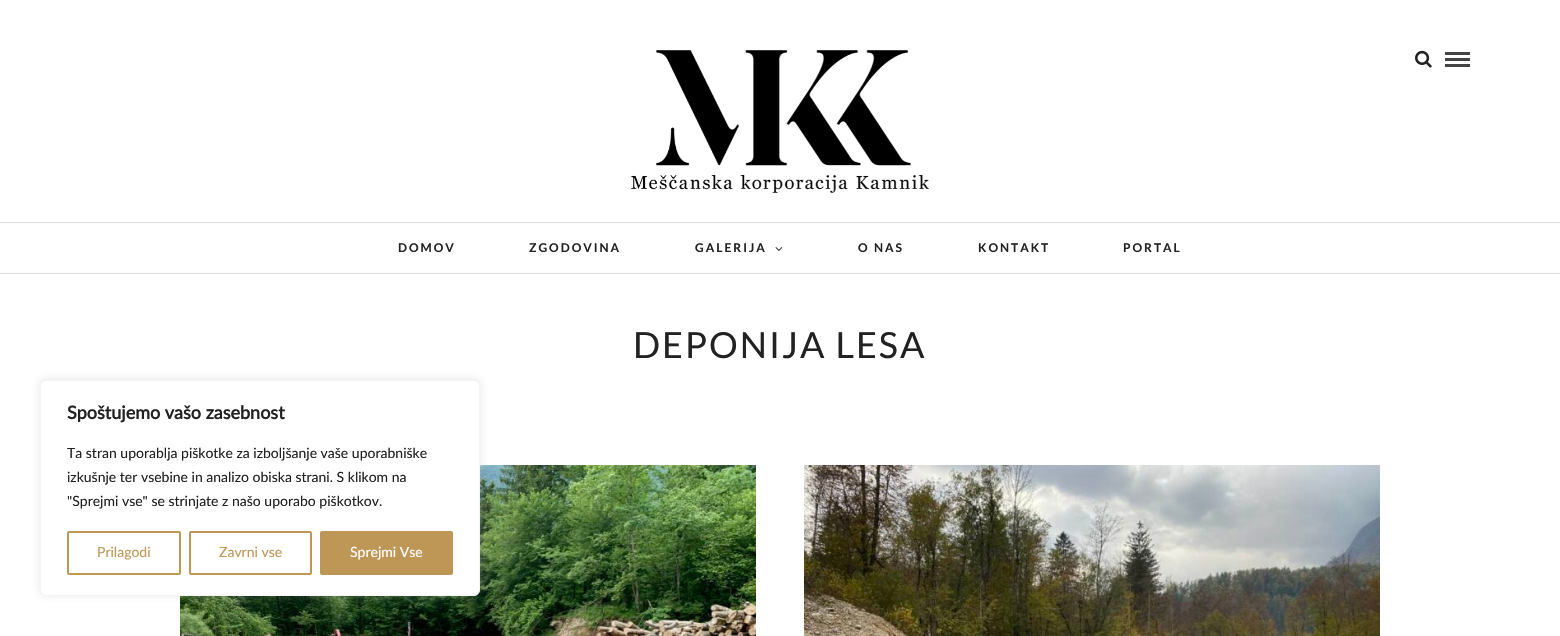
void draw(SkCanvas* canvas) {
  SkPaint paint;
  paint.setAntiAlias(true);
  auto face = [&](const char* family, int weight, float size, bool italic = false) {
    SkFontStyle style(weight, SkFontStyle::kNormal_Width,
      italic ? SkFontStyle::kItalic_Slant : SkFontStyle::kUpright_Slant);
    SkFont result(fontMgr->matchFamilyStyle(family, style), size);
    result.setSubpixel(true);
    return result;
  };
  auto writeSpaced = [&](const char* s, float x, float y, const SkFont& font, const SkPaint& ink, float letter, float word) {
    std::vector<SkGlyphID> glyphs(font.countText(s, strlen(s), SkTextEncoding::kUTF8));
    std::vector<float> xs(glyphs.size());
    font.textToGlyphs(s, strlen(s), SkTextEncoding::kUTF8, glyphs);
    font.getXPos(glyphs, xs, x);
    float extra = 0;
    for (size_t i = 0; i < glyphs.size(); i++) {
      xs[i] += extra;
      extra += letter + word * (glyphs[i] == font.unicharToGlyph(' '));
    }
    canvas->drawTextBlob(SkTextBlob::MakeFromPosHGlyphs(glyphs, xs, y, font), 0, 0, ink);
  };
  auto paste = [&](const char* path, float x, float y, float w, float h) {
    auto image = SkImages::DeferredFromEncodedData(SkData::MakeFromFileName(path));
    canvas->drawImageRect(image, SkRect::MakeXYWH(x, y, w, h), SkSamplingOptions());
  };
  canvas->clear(0xffffffff);
  paint.setColor(0xffe1e1e1);
  canvas->drawRect(SkRect::MakeXYWH(0, 273, 1560, 1), paint);
  canvas->drawRect(SkRect::MakeXYWH(0, 222, 1560, 1), paint);
  paste("img/1.png", 631, 50, 298, 143);
  paste("img/2.png", 1415, 50, 17, 18);
  {
    const struct { float x, y, w, h; SkColor color; } items[] = {
      {1445, 52, 25, 3, 0xff444444},
      {1445, 58, 25, 3, 0xff444444},
      {1445, 64, 25, 3, 0xff444444},
    };
    for (auto [x, y, w, h, color] : items) {
      paint.setColor(color);
      canvas->drawRect(SkRect::MakeXYWH(x, y, w, h), paint);
    }
  }
  paste("img/3.png", 775, 247, 8, 4);
  paste("img/4.png", 180, 465, 576, 171);
  paste("img/5.png", 804, 465, 576, 171);
  paint.setColor(0x4dacabab);
  paint.setMaskFilter(SkMaskFilter::MakeBlur(kNormal_SkBlurStyle, 5));
  canvas->drawRoundRect(SkRect::MakeXYWH(40, 379, 440, 216), 6, 6, paint);
  paint.setMaskFilter(nullptr);
  paint.setColor(0xffffffff);
  canvas->drawRoundRect(SkRect::MakeXYWH(40.5f, 380.5f, 439, 215), 5.5f, 5.5f, paint);
  paint.setStroke(true);
  paint.setStrokeWidth(1);
  paint.setColor(0xfff4f4f4);
  canvas->drawRoundRect(SkRect::MakeXYWH(40.5f, 380.5f, 439, 215), 5.5f, 5.5f, paint);
  paint.setStrokeWidth(2);
  paint.setColor(0xffbe9656);
  canvas->drawRoundRect(SkRect::MakeXYWH(68, 532, 112, 42), 1, 1, paint);
  canvas->drawRoundRect(SkRect::MakeXYWH(190, 532, 121, 42), 1, 1, paint);
  paint.setStroke(false);
  canvas->drawRoundRect(SkRect::MakeXYWH(321, 532, 131, 42), 1, 1, paint);
  paint.setStroke(true);
  canvas->drawRoundRect(SkRect::MakeXYWH(321, 532, 131, 42), 1, 1, paint);
  auto f0 = face("Lato", 700, 12);
  paint.setStroke(false);
  paint.setColor(0xff222222);
  {
    const struct { const char* s; float x, y; } items[] = {
      {"DOMOV", 398, 252},
      {"ZGODOVINA", 529, 252},
      {"GALERIJA", 695, 252},
      {"O NAS", 858, 252},
      {"KONTAKT", 978, 252},
      {"PORTAL", 1123, 252},
    };
    for (auto [s, x, y] : items) {
      writeSpaced(s, x, y, f0, paint, 2, 0);
    }
  }
  auto f1 = face("Lato", 400, 36);
  writeSpaced("DEPONIJA LESA", 633, 358, f1, paint, 2, 0);
  auto f2 = face("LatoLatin", 700, 18);
  canvas->drawString("Spoštujemo vašo zasebnost", 67, 419, f2, paint);
  auto f3 = face("LatoLatin", 400, 14);
  {
    const struct { const char* s; float x, y; } items[] = {
      {"Ta stran uporablja piškotke za izboljšanje vaše uporabniške", 67, 458},
      {"izkušnje ter vsebine in analizo obiska strani. S klikom na", 67, 482},
      {"\"Sprejmi vse\" se strinjate z našo uporabo piškotkov.", 67, 506},
    };
    for (auto [s, x, y] : items) {
      canvas->drawString(s, x, y, f3, paint);
    }
  }
  paint.setColor(0xffbe9656);
  canvas->drawString("Prilagodi", 97, 557, f3, paint);
  canvas->drawString("Zavrni vse", 219, 557, f3, paint);
  paint.setColor(0xffffffff);
  canvas->drawString("Sprejmi Vse", 350, 557, f3, paint);
}
